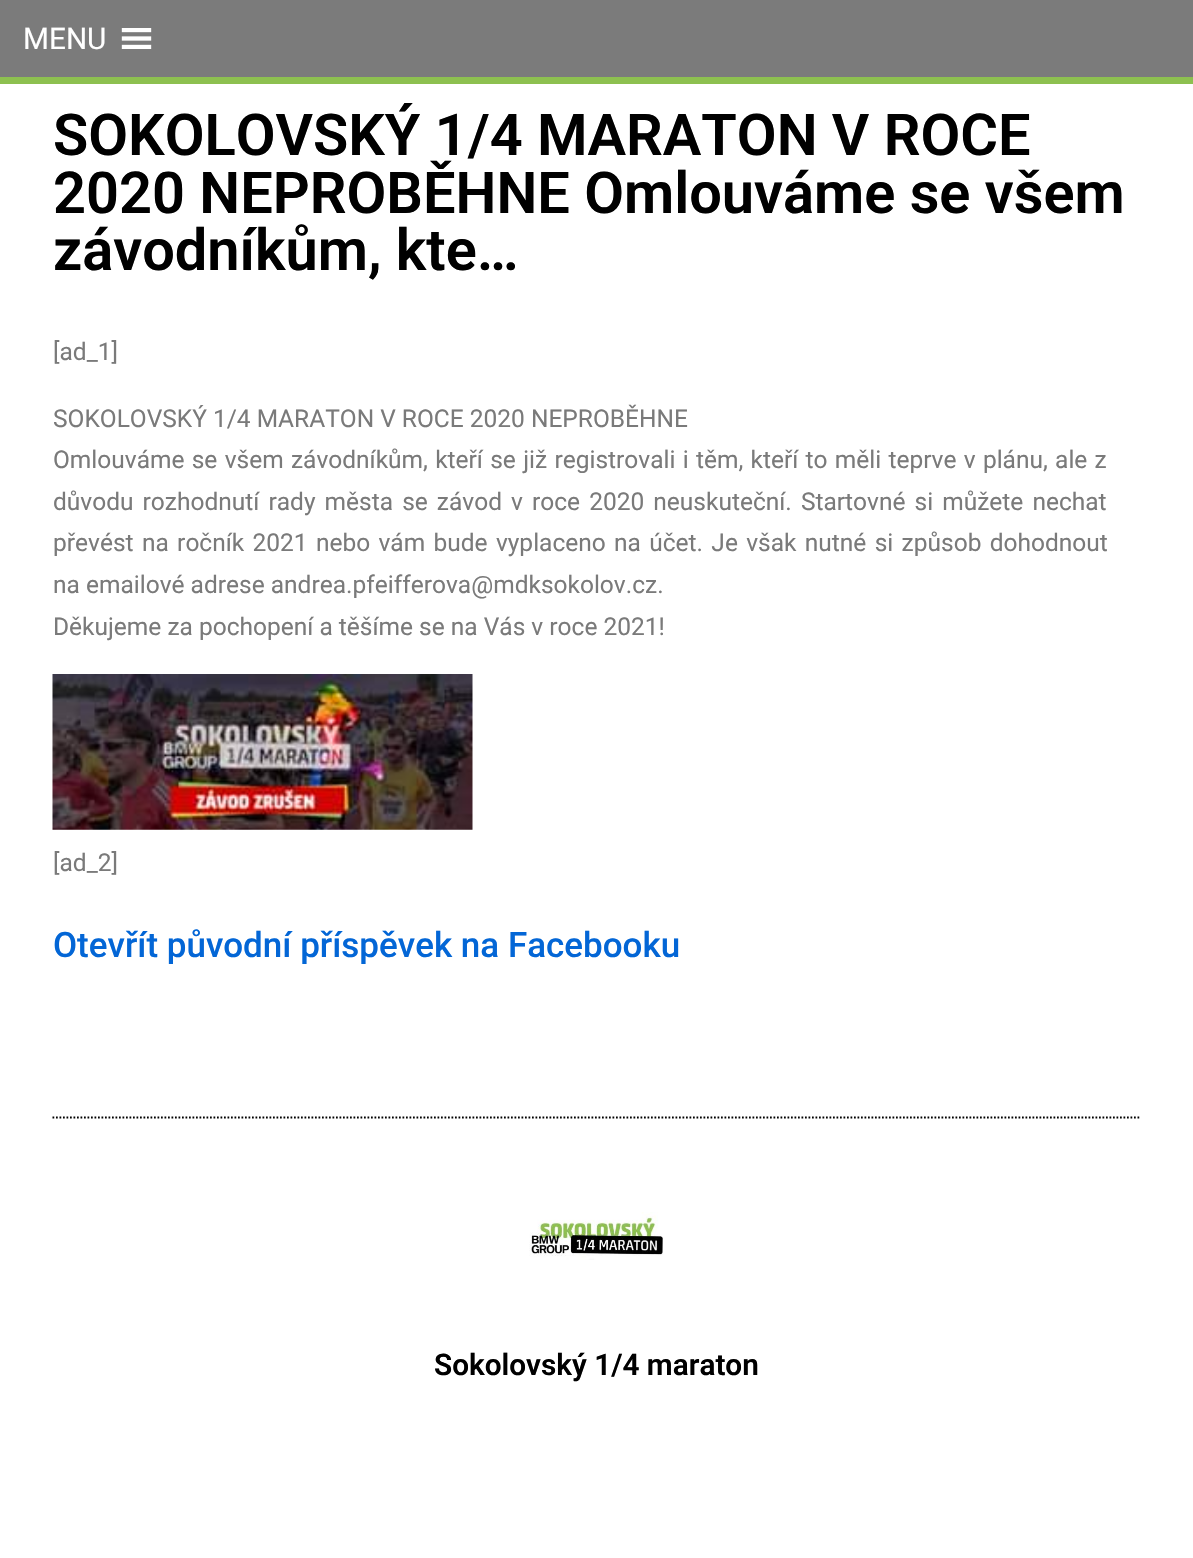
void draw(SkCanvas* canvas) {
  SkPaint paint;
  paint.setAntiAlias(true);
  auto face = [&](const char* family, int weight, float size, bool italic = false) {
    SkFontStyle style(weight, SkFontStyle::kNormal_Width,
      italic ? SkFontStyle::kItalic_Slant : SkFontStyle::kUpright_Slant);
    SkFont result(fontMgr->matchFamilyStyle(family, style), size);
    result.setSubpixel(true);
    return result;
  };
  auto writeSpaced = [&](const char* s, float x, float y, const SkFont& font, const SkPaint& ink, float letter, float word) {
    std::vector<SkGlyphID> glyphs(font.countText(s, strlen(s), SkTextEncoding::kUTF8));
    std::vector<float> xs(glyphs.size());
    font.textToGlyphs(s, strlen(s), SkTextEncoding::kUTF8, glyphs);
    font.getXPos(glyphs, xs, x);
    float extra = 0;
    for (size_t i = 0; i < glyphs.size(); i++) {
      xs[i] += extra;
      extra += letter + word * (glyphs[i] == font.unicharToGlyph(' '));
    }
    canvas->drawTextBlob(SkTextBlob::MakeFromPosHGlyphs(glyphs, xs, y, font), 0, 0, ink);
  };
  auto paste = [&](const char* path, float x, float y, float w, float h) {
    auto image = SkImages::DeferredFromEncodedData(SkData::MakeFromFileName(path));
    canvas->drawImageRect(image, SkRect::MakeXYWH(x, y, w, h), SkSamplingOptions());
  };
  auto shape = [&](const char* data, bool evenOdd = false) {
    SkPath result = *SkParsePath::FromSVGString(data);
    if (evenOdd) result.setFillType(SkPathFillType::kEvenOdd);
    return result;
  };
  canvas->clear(0xffffffff);
  paint.setColor(0xff7b7b7b);
  canvas->drawRect(SkRect::MakeXYWH(0, 0, 1193, 77), paint);
  paint.setColor(0xff8dc050);
  canvas->drawRect(SkRect::MakeXYWH(0, 77, 1193, 7), paint);
  paste("img/1.png", 121, 28, 31, 21);
  paste("img/2.png", 52, 674, 421, 156);
  paint.setStroke(true);
  paint.setStrokeWidth(1.8f);
  paint.setColor(0xff000000);
  paint.setPathEffect(SkDashPathEffect::Make({{1.75f, 1.75f}}, 0));
  canvas->drawPath(shape("M52.5 1117.5H1141"), paint);
  paint.setPathEffect(nullptr);
  paste("img/3.png", 529, 1212, 134, 48);
  auto f0 = face("Roboto", 400, 29.75f);
  paint.setStroke(false);
  paint.setColor(0xffffffff);
  canvas->drawString("MENU", 23, 49, f0, paint);
  auto f1 = face("Roboto", 600, 57.75f);
  paint.setColor(0xff000000);
  {
    const struct { const char* s; float x, y; } items[] = {
      {"SOKOLOVSKÝ 1/4 MARATON V ROCE", 53, 155},
      {"2020 NEPROBĚHNE Omlouváme se všem", 53, 213},
      {"závodníkům, kte…", 53, 270},
    };
    for (auto [s, x, y] : items) {
      canvas->drawString(s, x, y, f1, paint);
    }
  }
  auto f2 = face("Roboto", 400, 24.5f);
  paint.setColor(0xff7a7a7a);
  canvas->drawString("[ad_1]", 53, 360, f2, paint);
  canvas->drawString("SOKOLOVSKÝ 1/4 MARATON V ROCE 2020 NEPROBĚHNE", 53, 427, f2, paint);
  writeSpaced("Omlouváme se všem závodníkům, kteří se již registrovali i těm, kteří to měli teprve v plánu, ale z", 53, 468, f2, paint, 0, 1.2f);
  writeSpaced("důvodu rozhodnutí rady města se závod v roce 2020 neuskuteční. Startovné si můžete nechat", 53, 510, f2, paint, 0, 3);
  writeSpaced("převést na ročník 2021 nebo vám bude vyplaceno na účet. Je však nutné si způsob dohodnout", 53, 551, f2, paint, 0, 2.25f);
  {
    const struct { const char* s; float x, y; } items[] = {
      {"na emailové adrese andrea.pfeifferova@mdksokolov.cz.", 53, 593},
      {"Děkujeme za pochopení a těšíme se na Vás v roce 2021!", 53, 635},
      {"[ad_2]", 53, 871},
    };
    for (auto [s, x, y] : items) {
      canvas->drawString(s, x, y, f2, paint);
    }
  }
  auto f3 = face("Roboto", 500, 35);
  paint.setColor(0xff0366d6);
  canvas->drawString("Otevřít původní příspěvek na Facebooku", 53, 957, f3, paint);
  auto f4 = face("Roboto", 600, 29.75f);
  paint.setColor(0xff000000);
  canvas->drawString("Sokolovský 1/4 maraton", 434, 1375, f4, paint);
}
